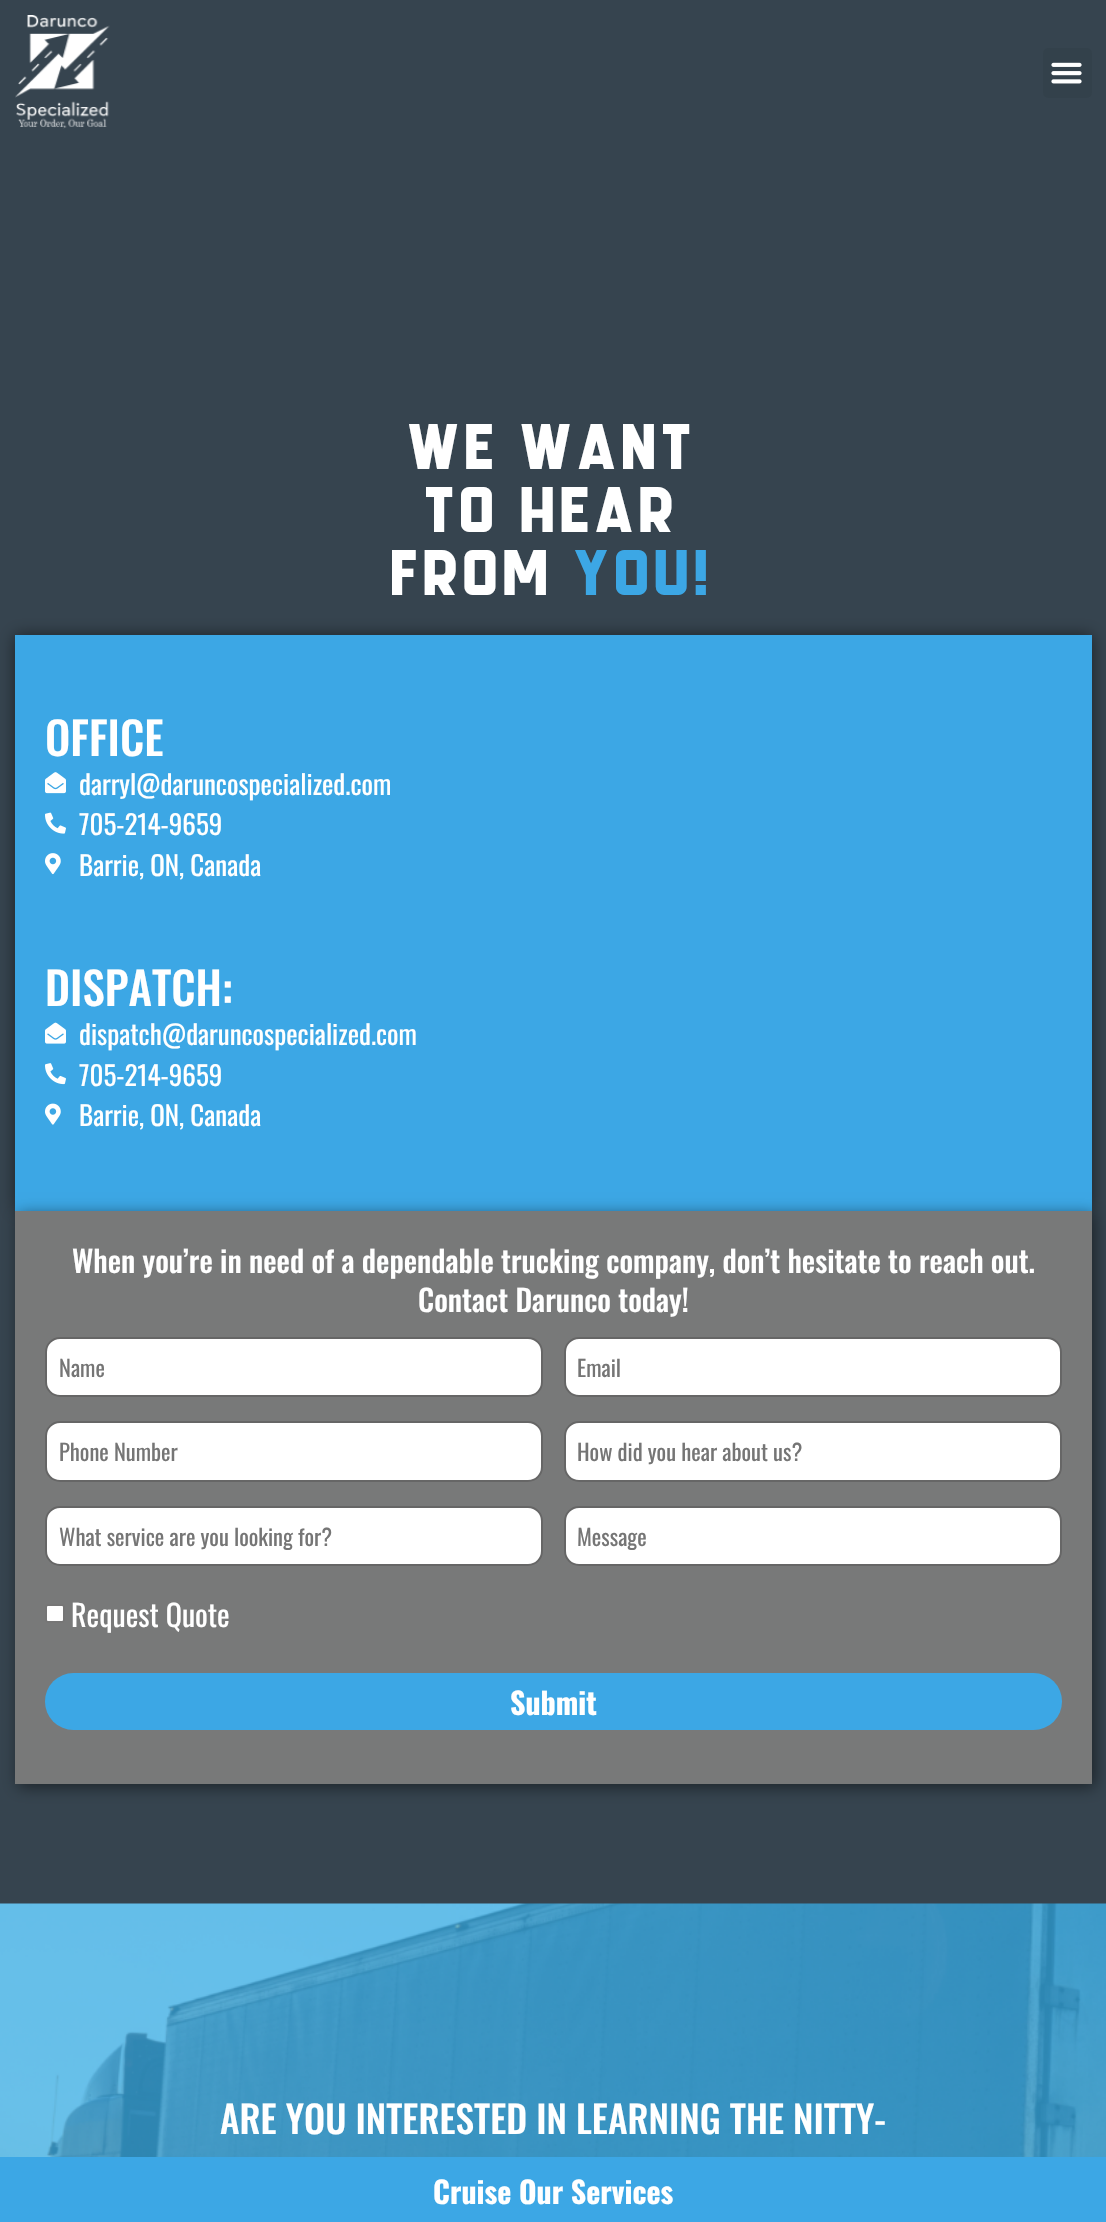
void draw(SkCanvas* canvas) {
  SkPaint paint;
  paint.setAntiAlias(true);
  auto face = [&](const char* family, int weight, float size, bool italic = false) {
    SkFontStyle style(weight, SkFontStyle::kNormal_Width,
      italic ? SkFontStyle::kItalic_Slant : SkFontStyle::kUpright_Slant);
    SkFont result(fontMgr->matchFamilyStyle(family, style), size);
    result.setSubpixel(true);
    return result;
  };
  auto paste = [&](const char* path, float x, float y, float w, float h) {
    auto image = SkImages::DeferredFromEncodedData(SkData::MakeFromFileName(path));
    canvas->drawImageRect(image, SkRect::MakeXYWH(x, y, w, h), SkSamplingOptions());
  };
  canvas->clear(0xff36444f);
  paste("img/1.png", 15, 15, 95, 114);
  paint.setColor(0xff33414b);
  canvas->drawRoundRect(SkRect::MakeXYWH(1043, 48, 49, 50), 5, 5, paint);
  paste("img/2.png", 1051, 62, 31, 22);
  paint.setColor(0x80000000);
  paint.setMaskFilter(SkMaskFilter::MakeBlur(kNormal_SkBlurStyle, 7.5f));
  canvas->drawRect(SkRect::MakeXYWH(15, 635, 1077, 576), paint);
  paint.setMaskFilter(nullptr);
  paint.setColor(0xff3ca7e5);
  canvas->drawRect(SkRect::MakeXYWH(15, 635, 1077, 576), paint);
  paste("img/3.png", 45, 772, 21, 22);
  paste("img/4.png", 45, 812, 21, 22);
  paste("img/5.png", 45, 853, 16, 22);
  paste("img/6.png", 45, 1022, 21, 22);
  paste("img/7.png", 45, 1063, 21, 22);
  paste("img/8.png", 45, 1103, 16, 22);
  paint.setColor(0x80000000);
  paint.setMaskFilter(SkMaskFilter::MakeBlur(kNormal_SkBlurStyle, 7.5f));
  canvas->drawRect(SkRect::MakeXYWH(18, 1214, 1077, 573), paint);
  paint.setMaskFilter(nullptr);
  paint.setColor(0xff787979);
  canvas->drawRect(SkRect::MakeXYWH(15, 1211, 1077, 573), paint);
  paint.setColor(0xffffffff);
  canvas->drawRoundRect(SkRect::MakeXYWH(46, 1338, 496, 58), 14, 14, paint);
  paint.setStroke(true);
  paint.setStrokeWidth(2);
  paint.setColor(0xff666666);
  canvas->drawRoundRect(SkRect::MakeXYWH(46, 1338, 496, 58), 14, 14, paint);
  paint.setStroke(false);
  paint.setColor(0xffffffff);
  canvas->drawRoundRect(SkRect::MakeXYWH(565, 1338, 496, 58), 14, 14, paint);
  paint.setStroke(true);
  paint.setColor(0xff666666);
  canvas->drawRoundRect(SkRect::MakeXYWH(565, 1338, 496, 58), 14, 14, paint);
  paint.setStroke(false);
  paint.setColor(0xffffffff);
  canvas->drawRoundRect(SkRect::MakeXYWH(46, 1422, 496, 59), 14, 14, paint);
  paint.setStroke(true);
  paint.setColor(0xff666666);
  canvas->drawRoundRect(SkRect::MakeXYWH(46, 1422, 496, 59), 14, 14, paint);
  paint.setStroke(false);
  paint.setColor(0xffffffff);
  canvas->drawRoundRect(SkRect::MakeXYWH(565, 1422, 496, 59), 14, 14, paint);
  paint.setStroke(true);
  paint.setColor(0xff666666);
  canvas->drawRoundRect(SkRect::MakeXYWH(565, 1422, 496, 59), 14, 14, paint);
  paint.setStroke(false);
  paint.setColor(0xffffffff);
  canvas->drawRoundRect(SkRect::MakeXYWH(46, 1507, 496, 58), 14, 14, paint);
  paint.setStroke(true);
  paint.setColor(0xff666666);
  canvas->drawRoundRect(SkRect::MakeXYWH(46, 1507, 496, 58), 14, 14, paint);
  paint.setStroke(false);
  paint.setColor(0xffffffff);
  canvas->drawRoundRect(SkRect::MakeXYWH(565, 1507, 496, 58), 14, 14, paint);
  paint.setStroke(true);
  paint.setColor(0xff666666);
  canvas->drawRoundRect(SkRect::MakeXYWH(565, 1507, 496, 58), 14, 14, paint);
  paint.setStroke(false);
  paint.setColor(0xffffffff);
  canvas->drawRoundRect(SkRect::MakeXYWH(46, 1605, 18, 17), 2, 2, paint);
  paint.setStroke(true);
  paint.setColor(0xff767676);
  canvas->drawRoundRect(SkRect::MakeXYWH(46, 1605, 18, 17), 2, 2, paint);
  paint.setStroke(false);
  paint.setColor(0xff3ca7e5);
  canvas->drawRoundRect(SkRect::MakeXYWH(45, 1673, 1017, 57), 28.5f, 28.5f, paint);
  paste("img/9.png", 0, 1903, 1106, 254);
  canvas->drawRect(SkRect::MakeXYWH(0, 2157, 1106, 65), paint);
  auto f0 = face("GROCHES", 400, 90);
  paint.setColor(0xffffffff);
  {
    const struct { const char* s; float x, y; } items[] = {
      {"We Want", 409, 469},
      {"to Hear", 426, 532},
      {"From", 392, 595},
    };
    for (auto [s, x, y] : items) {
      canvas->drawString(s, x, y, f0, paint);
    }
  }
  paint.setColor(0xff3ca7e5);
  canvas->drawString("You!", 575, 595, f0, paint);
  auto f1 = face("Oswald", 500, 45);
  paint.setColor(0xffffffff);
  canvas->drawString("OFFICE", 45, 756, f1, paint);
  auto f2 = face("Oswald", 400, 27);
  {
    const struct { const char* s; float x, y; } items[] = {
      {"darryl@daruncospecialized.com", 79, 795},
      {"705-214-9659", 79, 835},
      {"Barrie, ON, Canada", 79, 876},
    };
    for (auto [s, x, y] : items) {
      canvas->drawString(s, x, y, f2, paint);
    }
  }
  canvas->drawString("DISPATCH:", 45, 1006, f1, paint);
  {
    const struct { const char* s; float x, y; } items[] = {
      {"dispatch@daruncospecialized.com", 79, 1045},
      {"705-214-9659", 79, 1086},
      {"Barrie, ON, Canada", 79, 1126},
    };
    for (auto [s, x, y] : items) {
      canvas->drawString(s, x, y, f2, paint);
    }
  }
  auto f3 = face("Oswald", 500, 30);
  canvas->drawString("When you’re in need of a dependable trucking company, don’t hesitate to reach out.", 72, 1273, f3, paint);
  canvas->drawString("Contact Darunco today!", 418, 1312, f3, paint);
  auto f4 = face("Oswald", 400, 22.5f);
  paint.setColor(0xff757575);
  {
    const struct { const char* s; float x, y; } items[] = {
      {"Name", 59, 1377},
      {"Email", 577, 1377},
      {"Phone Number", 59, 1461},
      {"How did you hear about us?", 577, 1461},
      {"What service are you looking for?", 59, 1546},
      {"Message", 577, 1546},
    };
    for (auto [s, x, y] : items) {
      canvas->drawString(s, x, y, f4, paint);
    }
  }
  auto f5 = face("Oswald", 400, 30);
  paint.setColor(0xffffffff);
  canvas->drawString("Request Quote", 71, 1627, f5, paint);
  auto f6 = face("Oswald", 700, 30);
  canvas->drawString("Submit", 510, 1715, f6, paint);
  auto f7 = face("Oswald", 500, 37.5f);
  canvas->drawString("ARE YOU INTERESTED IN LEARNING THE NITTY-", 220, 2134, f7, paint);
  canvas->drawString("Cruise Our Services", 433, 2204, f6, paint);
}
